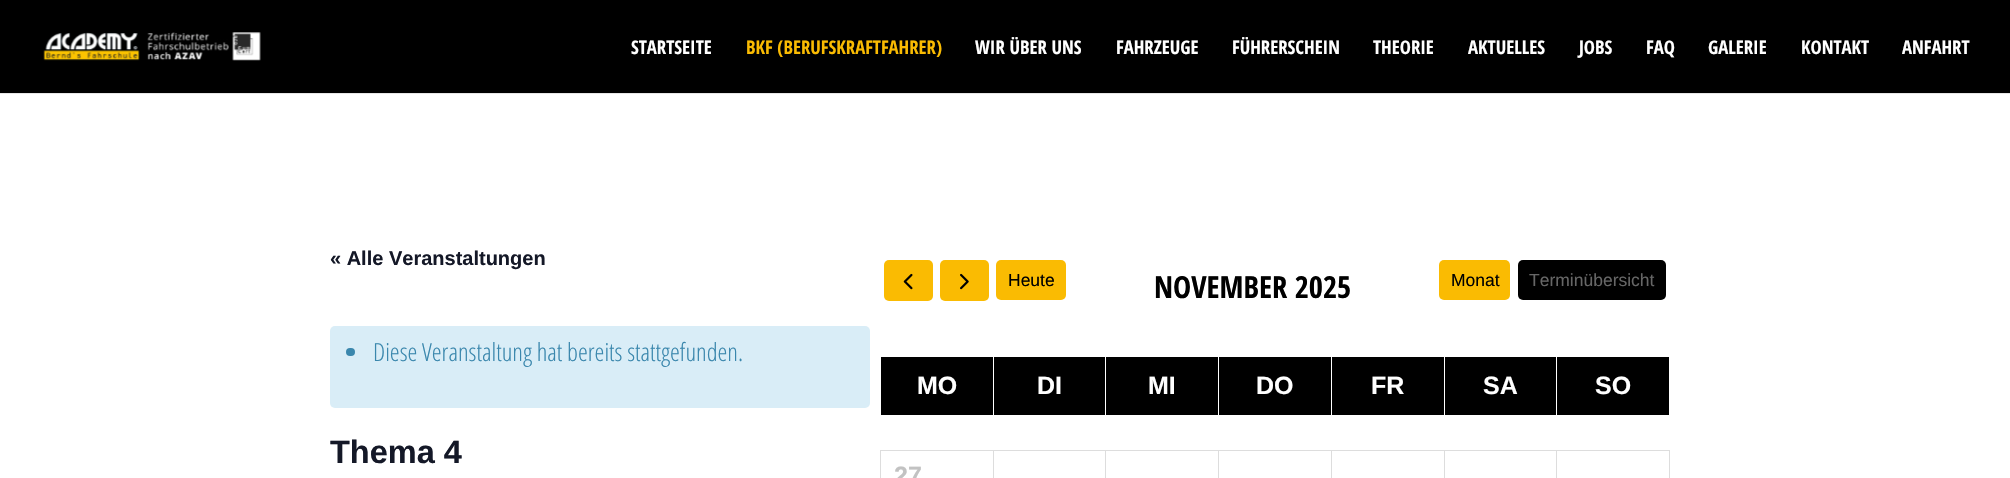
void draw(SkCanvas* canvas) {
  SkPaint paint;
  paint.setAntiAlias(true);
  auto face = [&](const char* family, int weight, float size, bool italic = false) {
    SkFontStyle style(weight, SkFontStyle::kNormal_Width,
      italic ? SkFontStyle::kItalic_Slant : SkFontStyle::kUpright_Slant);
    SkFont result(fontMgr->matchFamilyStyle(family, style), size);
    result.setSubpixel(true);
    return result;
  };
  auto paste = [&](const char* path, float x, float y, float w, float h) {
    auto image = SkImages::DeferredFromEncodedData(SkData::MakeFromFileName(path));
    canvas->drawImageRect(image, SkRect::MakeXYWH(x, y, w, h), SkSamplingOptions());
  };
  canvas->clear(0xffffffff);
  paint.setColor(0xffe6e6e6);
  canvas->drawRect(SkRect::MakeXYWH(0, 93, 2010, 1), paint);
  paint.setColor(0xff000000);
  canvas->drawRect(SkRect::MakeXYWH(0, 0, 2010, 93), paint);
  paste("img/1.png", 43, 32, 218, 29);
  paint.setColor(0xffd9edf7);
  canvas->drawRoundRect(SkRect::MakeXYWH(330, 326, 540, 82), 5, 5, paint);
  paint.setColor(0xff3a87ad);
  canvas->drawRoundRect(SkRect::MakeXYWH(346, 348, 9, 8), 4, 4, paint);
  paint.setColor(0xfffabb02);
  canvas->drawRoundRect(SkRect::MakeXYWH(884, 260, 49, 41), 5, 5, paint);
  paste("img/2.png", 903, 273, 10, 17);
  canvas->drawRoundRect(SkRect::MakeXYWH(940, 260, 49, 41), 5, 5, paint);
  paste("img/3.png", 960, 273, 9, 17);
  canvas->drawRoundRect(SkRect::MakeXYWH(996, 260, 70, 40), 5, 5, paint);
  canvas->drawRoundRect(SkRect::MakeXYWH(1439, 260, 71, 40), 5, 5, paint);
  paint.setColor(0xff000000);
  canvas->drawRoundRect(SkRect::MakeXYWH(1518, 260, 148, 40), 5, 5, paint);
  {
    const struct { float x, y, w, h; SkColor color; } items[] = {
      {881, 357, 112, 58, 0xff000000},
      {994, 357, 111, 58, 0xff000000},
      {1106, 357, 112, 58, 0xff000000},
      {1219, 357, 112, 58, 0xff000000},
      {1332, 357, 112, 58, 0xff000000},
      {1445, 357, 111, 58, 0xff000000},
      {1557, 357, 112, 58, 0xff000000},
      {1556, 450, 114, 1, 0xffdddddd},
      {1556, 450, 1, 28, 0xffdddddd},
      {1444, 450, 114, 1, 0xffdddddd},
      {1444, 450, 1, 28, 0xffdddddd},
      {1331, 450, 114, 1, 0xffdddddd},
      {1331, 450, 1, 28, 0xffdddddd},
      {1218, 450, 115, 1, 0xffdddddd},
      {1218, 450, 1, 28, 0xffdddddd},
      {1105, 450, 114, 1, 0xffdddddd},
      {1105, 450, 1, 28, 0xffdddddd},
      {993, 450, 113, 1, 0xffdddddd},
      {993, 450, 1, 28, 0xffdddddd},
      {880, 450, 114, 1, 0xffdddddd},
      {880, 450, 1, 28, 0xffdddddd},
      {1669, 450, 1, 28, 0xffdddddd},
    };
    for (auto [x, y, w, h, color] : items) {
      paint.setColor(color);
      canvas->drawRect(SkRect::MakeXYWH(x, y, w, h), paint);
    }
  }
  auto f0 = face("Open Sans Condensed", 700, 18.75f);
  paint.setColor(0xffffffff);
  canvas->drawString("STARTSEITE", 631, 54, f0, paint);
  paint.setColor(0xfffabb02);
  canvas->drawString("BKF (BERUFSKRAFTFAHRER)", 746, 54, f0, paint);
  paint.setColor(0xffffffff);
  {
    const struct { const char* s; float x, y; } items[] = {
      {"WIR ÜBER UNS", 975, 54},
      {"FAHRZEUGE", 1116, 54},
      {"FÜHRERSCHEIN", 1232, 54},
      {"THEORIE", 1373, 54},
      {"AKTUELLES", 1468, 54},
      {"JOBS", 1579, 54},
      {"FAQ", 1646, 54},
      {"GALERIE", 1708, 54},
      {"KONTAKT", 1801, 54},
      {"ANFAHRT", 1902, 54},
    };
    for (auto [s, x, y] : items) {
      canvas->drawString(s, x, y, f0, paint);
    }
  }
  auto f1 = face("Liberation Sans", 700, 20);
  paint.setColor(0xff141827);
  canvas->drawString("« Alle Veranstaltungen", 330, 265, f1, paint);
  auto f2 = face("Open Sans", 300, 25);
  paint.setColor(0xff3a87ad);
  canvas->drawString("Diese Veranstaltung hat bereits stattgefunden.", 373, 361, f2, paint);
  auto f3 = face("Liberation Sans", 700, 32.5f);
  paint.setColor(0xff141827);
  canvas->drawString("Thema 4", 330, 463, f3, paint);
  auto f4 = face("Liberation Sans", 400, 17.5f);
  paint.setColor(0xff000000);
  canvas->drawString("Heute", 1008, 286, f4, paint);
  auto f5 = face("Open Sans Condensed", 700, 30.5f);
  canvas->drawString("NOVEMBER 2025", 1154, 298, f5, paint);
  canvas->drawString("Monat", 1451, 286, f4, paint);
  paint.setColor(0xff666666);
  canvas->drawString("Terminübersicht", 1529, 286, f4, paint);
  auto f6 = face("Liberation Sans", 700, 25);
  paint.setColor(0xffffffff);
  {
    const struct { const char* s; float x, y; } items[] = {
      {"MO", 917, 394},
      {"DI", 1037, 394},
      {"MI", 1148, 394},
      {"DO", 1256, 394},
      {"FR", 1371, 394},
      {"SA", 1483, 394},
      {"SO", 1595, 394},
    };
    for (auto [s, x, y] : items) {
      canvas->drawString(s, x, y, f6, paint);
    }
  }
  paint.setColor(0xffc2c2c2);
  canvas->drawString("27", 894, 484, f6, paint);
}
